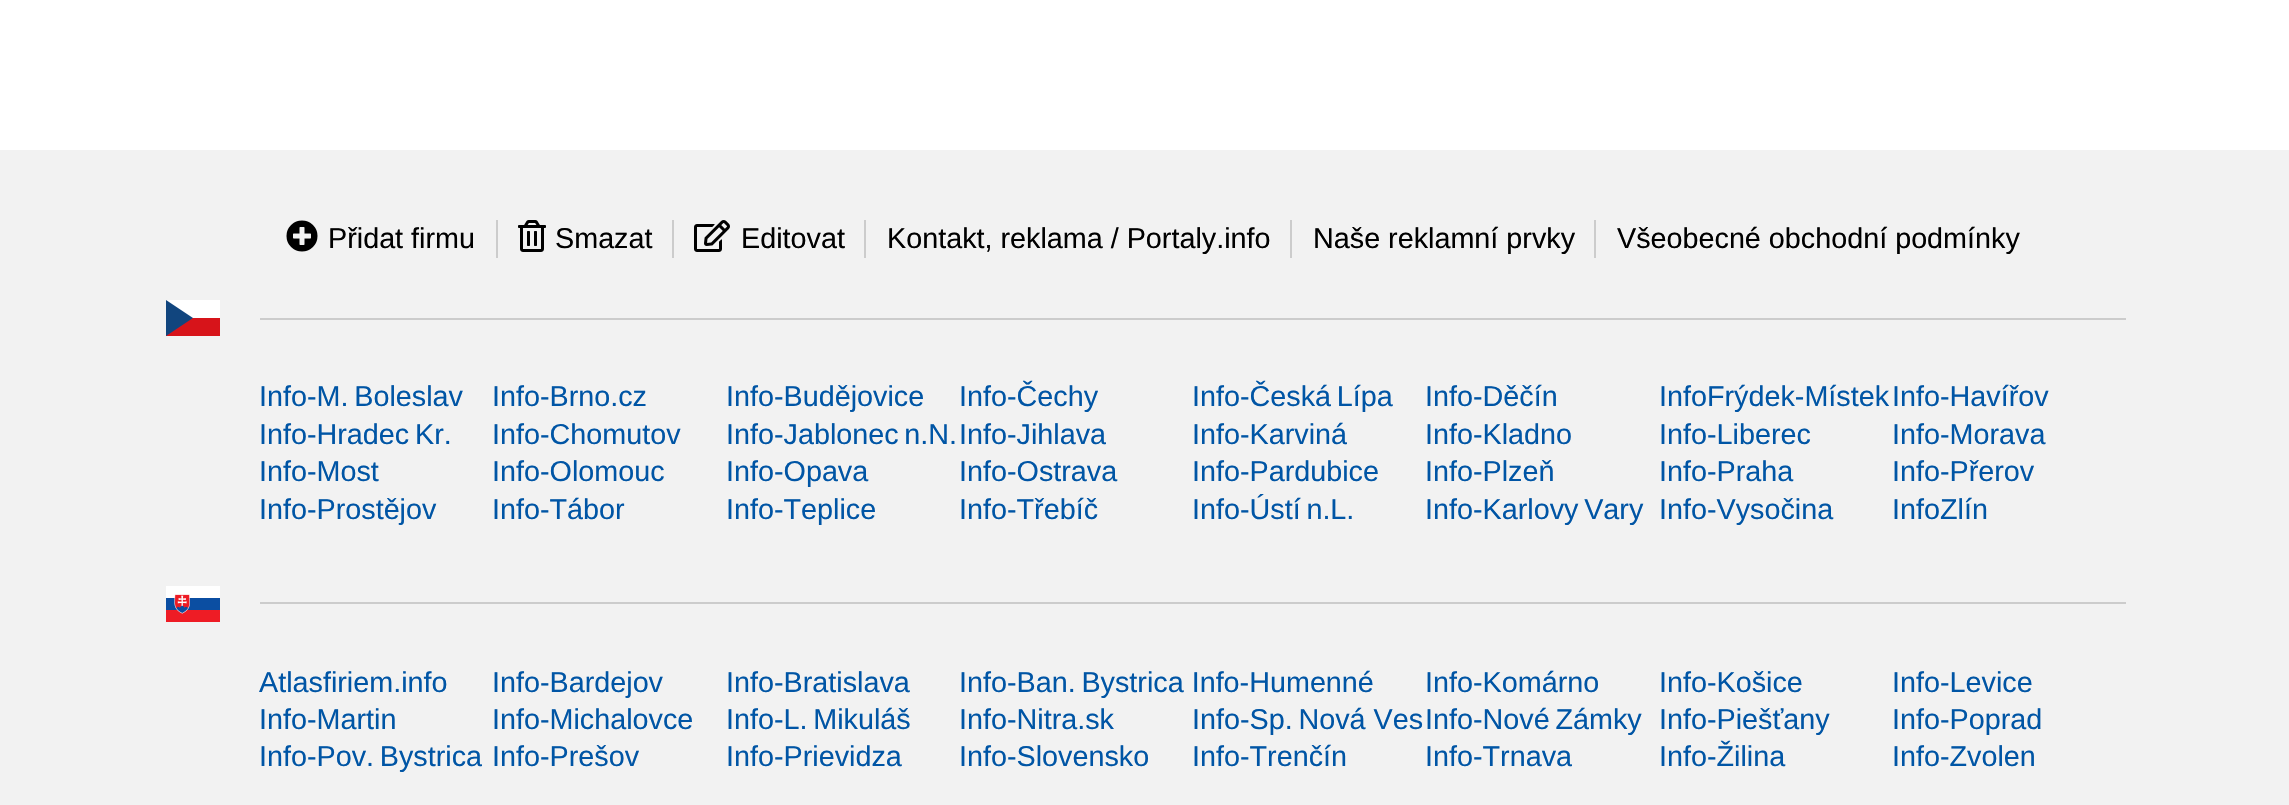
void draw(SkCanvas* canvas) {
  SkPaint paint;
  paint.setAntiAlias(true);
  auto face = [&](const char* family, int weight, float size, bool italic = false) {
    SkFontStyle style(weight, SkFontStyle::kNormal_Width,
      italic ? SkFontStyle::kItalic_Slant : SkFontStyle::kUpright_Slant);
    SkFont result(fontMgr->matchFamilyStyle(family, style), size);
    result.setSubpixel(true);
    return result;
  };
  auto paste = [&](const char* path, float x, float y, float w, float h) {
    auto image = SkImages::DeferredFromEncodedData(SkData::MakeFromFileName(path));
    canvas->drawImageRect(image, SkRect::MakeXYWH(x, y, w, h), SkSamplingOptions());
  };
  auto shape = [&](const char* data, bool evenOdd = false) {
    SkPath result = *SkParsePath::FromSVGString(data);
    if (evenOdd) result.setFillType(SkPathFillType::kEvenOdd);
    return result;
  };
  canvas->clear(0xffffffff);
  paint.setColor(0xfff2f2f2);
  canvas->drawRect(SkRect::MakeXYWH(0, 150, 2289, 655), paint);
  paste("img/1.png", 286, 220, 32, 32);
  paint.setColor(0xffcccccc);
  canvas->drawRect(SkRect::MakeXYWH(496, 220, 2, 38), paint);
  paste("img/2.png", 518, 220, 28, 32);
  canvas->drawRect(SkRect::MakeXYWH(672, 220, 2, 38), paint);
  paste("img/3.png", 694, 220, 36, 32);
  {
    const struct { float x, y, w, h; SkColor color; } items[] = {
      {864, 220, 2, 38, 0xffcccccc},
      {1290, 220, 2, 38, 0xffcccccc},
      {1594, 220, 2, 38, 0xffcccccc},
      {166, 318, 54, 18, 0xffd7141a},
      {166, 300, 54, 18, 0xffffffff},
    };
    for (auto [x, y, w, h, color] : items) {
      paint.setColor(color);
      canvas->drawRect(SkRect::MakeXYWH(x, y, w, h), paint);
    }
  }
  paint.setColor(0xff11457e);
  canvas->drawPath(shape("M193 318L166 300V336Z"), paint);
  paint.setColor(0xffcccccc);
  canvas->drawRect(SkRect::MakeXYWH(260, 318, 1866, 2), paint);
  paste("img/4.png", 166, 586, 54, 36);
  canvas->drawRect(SkRect::MakeXYWH(260, 602, 1866, 2), paint);
  auto f0 = face("Liberation Sans", 400, 28.75f);
  paint.setColor(0xff000000);
  {
    const struct { const char* s; float x, y; } items[] = {
      {"Přidat firmu", 328, 248},
      {"Smazat", 555, 248},
      {"Editovat", 741, 248},
      {"Kontakt, reklama / Portaly.info", 887, 248},
      {"Naše reklamní prvky", 1313, 248},
      {"Všeobecné obchodní podmínky", 1617, 248},
    };
    for (auto [s, x, y] : items) {
      canvas->drawString(s, x, y, f0, paint);
    }
  }
  paint.setColor(0xff0055a5);
  {
    const struct { const char* s; float x, y; } items[] = {
      {"Info-M. Boleslav", 259, 406},
      {"Info-Brno.cz", 492, 406},
      {"Info-Budějovice", 726, 406},
      {"Info-Čechy", 959, 406},
      {"Info-Česká Lípa", 1192, 406},
      {"Info-Děčín", 1425, 406},
      {"InfoFrýdek-Místek", 1659, 406},
      {"Info-Havířov", 1892, 406},
      {"Info-Hradec Kr.", 259, 444},
      {"Info-Chomutov", 492, 444},
      {"Info-Jablonec n.N.", 726, 444},
      {"Info-Jihlava", 959, 444},
      {"Info-Karviná", 1192, 444},
      {"Info-Kladno", 1425, 444},
      {"Info-Liberec", 1659, 444},
      {"Info-Morava", 1892, 444},
      {"Info-Most", 259, 481},
      {"Info-Olomouc", 492, 481},
      {"Info-Opava", 726, 481},
      {"Info-Ostrava", 959, 481},
      {"Info-Pardubice", 1192, 481},
      {"Info-Plzeň", 1425, 481},
      {"Info-Praha", 1659, 481},
      {"Info-Přerov", 1892, 481},
      {"Info-Prostějov", 259, 519},
      {"Info-Tábor", 492, 519},
      {"Info-Teplice", 726, 519},
      {"Info-Třebíč", 959, 519},
      {"Info-Ústí n.L.", 1192, 519},
      {"Info-Karlovy Vary", 1425, 519},
      {"Info-Vysočina", 1659, 519},
      {"InfoZlín", 1892, 519},
      {"Atlasfiriem.info", 259, 692},
      {"Info-Bardejov", 492, 692},
      {"Info-Bratislava", 726, 692},
      {"Info-Ban. Bystrica Info-Humenné", 959, 692},
      {"Info-Komárno", 1425, 692},
      {"Info-Košice", 1659, 692},
      {"Info-Levice", 1892, 692},
      {"Info-Martin", 259, 729},
      {"Info-Michalovce", 492, 729},
      {"Info-L. Mikuláš", 726, 729},
      {"Info-Nitra.sk", 959, 729},
      {"Info-Sp. Nová Ves", 1192, 729},
      {"Info-Nové Zámky", 1425, 729},
      {"Info-Piešťany", 1659, 729},
      {"Info-Poprad", 1892, 729},
      {"Info-Pov. Bystrica", 259, 766},
      {"Info-Prešov", 492, 766},
      {"Info-Prievidza", 726, 766},
      {"Info-Slovensko", 959, 766},
      {"Info-Trenčín", 1192, 766},
      {"Info-Trnava", 1425, 766},
      {"Info-Žilina", 1659, 766},
      {"Info-Zvolen", 1892, 766},
    };
    for (auto [s, x, y] : items) {
      canvas->drawString(s, x, y, f0, paint);
    }
  }
}
